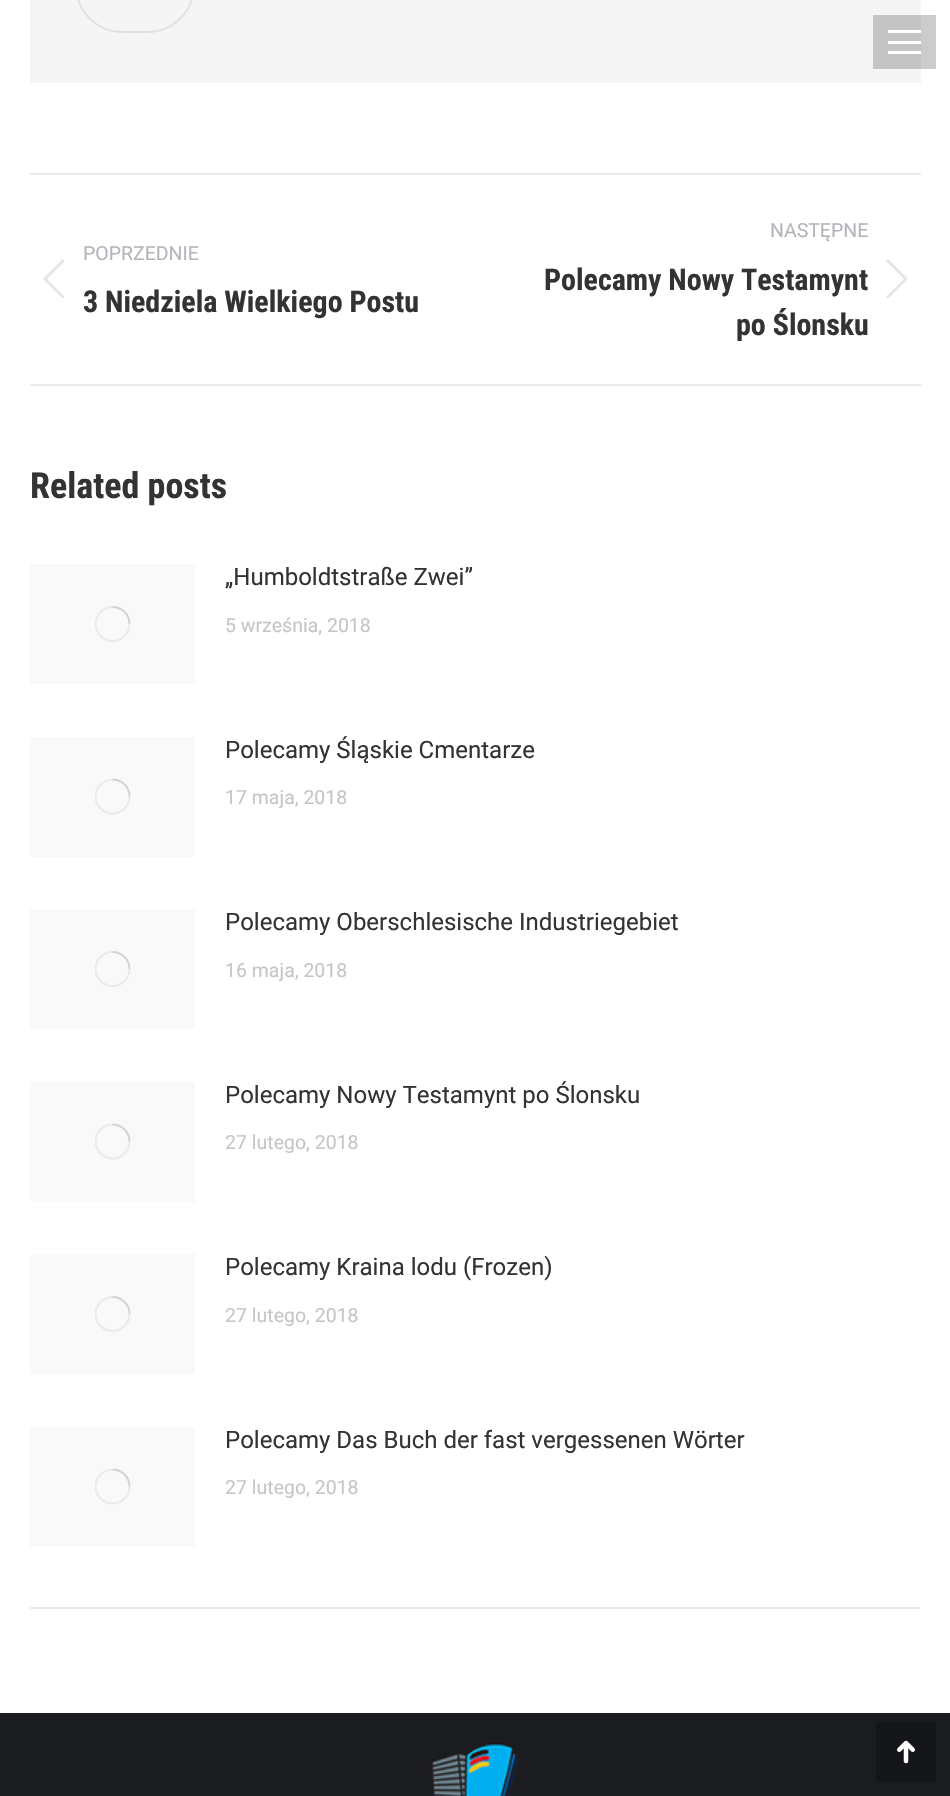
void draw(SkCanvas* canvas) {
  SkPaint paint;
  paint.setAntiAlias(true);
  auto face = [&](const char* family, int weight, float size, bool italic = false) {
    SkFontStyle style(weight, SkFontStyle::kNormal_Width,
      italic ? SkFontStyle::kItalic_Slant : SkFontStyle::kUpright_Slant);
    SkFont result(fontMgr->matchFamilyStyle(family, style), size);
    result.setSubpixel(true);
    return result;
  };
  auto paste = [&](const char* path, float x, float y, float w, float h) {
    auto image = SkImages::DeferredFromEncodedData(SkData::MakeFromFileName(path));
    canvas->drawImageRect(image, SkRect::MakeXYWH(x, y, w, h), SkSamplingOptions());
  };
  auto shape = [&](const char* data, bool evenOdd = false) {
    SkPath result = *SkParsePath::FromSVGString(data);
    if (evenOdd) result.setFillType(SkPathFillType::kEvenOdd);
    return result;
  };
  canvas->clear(0xffffffff);
  {
    const struct { float x, y, w, h; SkColor color; } items[] = {
      {30, 0, 891, 83, 0xfff5f5f5},
      {873, 15, 63, 54, 0x33000000},
      {888, 30, 33, 3, 0xffffffff},
      {888, 41, 33, 3, 0xffffffff},
      {888, 51, 33, 3, 0xffffffff},
    };
    for (auto [x, y, w, h, color] : items) {
      paint.setColor(color);
      canvas->drawRect(SkRect::MakeXYWH(x, y, w, h), paint);
    }
  }
  paint.setStroke(true);
  paint.setStrokeWidth(2);
  paint.setColor(0xffe1e1e1);
  canvas->drawRoundRect(SkRect::MakeXYWH(76, -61, 118, 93), 59, 59, paint);
  paint.setStroke(false);
  paint.setColor(0xffebebeb);
  canvas->drawRect(SkRect::MakeXYWH(30, 173, 891, 2), paint);
  canvas->drawRect(SkRect::MakeXYWH(30, 384, 891, 2), paint);
  paste("img/1.png", 43, 259, 22, 40);
  paste("img/2.png", 886, 259, 22, 40);
  canvas->drawRect(SkRect::MakeXYWH(30, 1607, 891, 2), paint);
  paint.setColor(0xfff9f9fa);
  canvas->drawRect(SkRect::MakeXYWH(30, 564, 165, 120), paint);
  canvas->save();
  canvas->clipRect(SkRect::MakeXYWH(95, 606, 36, 36));
  paint.setStroke(true);
  paint.setStrokeWidth(1.9f);
  paint.setColor(0xffeaeaec);
  canvas->drawCircle(112.5f, 624, 17, paint);
  canvas->restore();
  paint.setColor(0x408b8d94);
  canvas->drawPath(shape("M129.5 624C129.5 614.5 122 607 112.5 607"), paint);
  paint.setStroke(false);
  paint.setColor(0xfff9f9fa);
  canvas->drawRect(SkRect::MakeXYWH(30, 737, 165, 120), paint);
  canvas->save();
  canvas->clipRect(SkRect::MakeXYWH(95, 779, 36, 36));
  paint.setStroke(true);
  paint.setColor(0xffeaeaec);
  canvas->drawCircle(112.5f, 796.5f, 17, paint);
  canvas->restore();
  paint.setColor(0x408b8d94);
  canvas->drawPath(shape("M129.5 796.5C129.5 787 122 779.5 112.5 779.5"), paint);
  paint.setStroke(false);
  paint.setColor(0xfff9f9fa);
  canvas->drawRect(SkRect::MakeXYWH(30, 909, 165, 120), paint);
  canvas->save();
  canvas->clipRect(SkRect::MakeXYWH(95, 951, 36, 36));
  paint.setStroke(true);
  paint.setColor(0xffeaeaec);
  canvas->drawCircle(112.5f, 969, 17, paint);
  canvas->restore();
  paint.setColor(0x408b8d94);
  canvas->drawPath(shape("M129.5 969C129.5 959.5 122 952 112.5 952"), paint);
  paint.setStroke(false);
  paint.setColor(0xfff9f9fa);
  canvas->drawRect(SkRect::MakeXYWH(30, 1082, 165, 120), paint);
  canvas->save();
  canvas->clipRect(SkRect::MakeXYWH(95, 1124, 36, 36));
  paint.setStroke(true);
  paint.setColor(0xffeaeaec);
  canvas->drawCircle(112.5f, 1141.5f, 17, paint);
  canvas->restore();
  paint.setColor(0x408b8d94);
  canvas->drawPath(shape("M129.5 1141.5C129.5 1132 122 1124.5 112.5 1124.5"), paint);
  paint.setStroke(false);
  paint.setColor(0xfff9f9fa);
  canvas->drawRect(SkRect::MakeXYWH(30, 1254, 165, 120), paint);
  canvas->save();
  canvas->clipRect(SkRect::MakeXYWH(95, 1296, 36, 36));
  paint.setStroke(true);
  paint.setColor(0xffeaeaec);
  canvas->drawCircle(112.5f, 1314, 17, paint);
  canvas->restore();
  paint.setColor(0x408b8d94);
  canvas->drawPath(shape("M129.5 1314C129.5 1304.5 122 1297 112.5 1297"), paint);
  paint.setStroke(false);
  paint.setColor(0xfff9f9fa);
  canvas->drawRect(SkRect::MakeXYWH(30, 1427, 165, 120), paint);
  canvas->save();
  canvas->clipRect(SkRect::MakeXYWH(95, 1469, 36, 36));
  paint.setStroke(true);
  paint.setColor(0xffeaeaec);
  canvas->drawCircle(112.5f, 1486.5f, 17, paint);
  canvas->restore();
  paint.setColor(0x408b8d94);
  canvas->drawPath(shape("M129.5 1486.5C129.5 1477 122 1469.5 112.5 1469.5"), paint);
  paint.setStroke(false);
  paint.setColor(0xff1a1c20);
  canvas->drawRect(SkRect::MakeXYWH(0, 1713, 950, 83), paint);
  paste("img/3.png", 430, 1743, 90, 53);
  paint.setColor(0xff15161a);
  canvas->drawRect(SkRect::MakeXYWH(876, 1722, 60, 60), paint);
  paste("img/4.png", 897, 1740, 18, 24);
  auto f0 = face("Roboto", 400, 19.5f);
  paint.setColor(0xffb4b5bb);
  canvas->drawString("POPRZEDNIE", 83, 260, f0, paint);
  auto f1 = face("Roboto Condensed", 700, 30);
  paint.setColor(0xff333333);
  canvas->drawString("3 Niedziela Wielkiego Postu", 83, 312, f1, paint);
  paint.setColor(0xffb4b5bb);
  canvas->drawString("NASTĘPNE", 770, 237, f0, paint);
  paint.setColor(0xff333333);
  canvas->drawString("Polecamy Nowy Testamynt", 544, 290, f1, paint);
  canvas->drawString("po Ślonsku", 736, 335, f1, paint);
  auto f2 = face("Roboto Condensed", 700, 36);
  canvas->drawString("Related posts", 30, 498, f2, paint);
  auto f3 = face("Roboto", 400, 24);
  canvas->drawString("„Humboldtstraße Zwei”", 225, 585, f3, paint);
  paint.setColor(0xffc5c6ca);
  canvas->drawString("5 września, 2018", 225, 632, f0, paint);
  paint.setColor(0xff333333);
  canvas->drawString("Polecamy Śląskie Cmentarze", 225, 758, f3, paint);
  paint.setColor(0xffc5c6ca);
  canvas->drawString("17 maja, 2018", 225, 804, f0, paint);
  paint.setColor(0xff333333);
  canvas->drawString("Polecamy Oberschlesische Industriegebiet", 225, 930, f3, paint);
  paint.setColor(0xffc5c6ca);
  canvas->drawString("16 maja, 2018", 225, 977, f0, paint);
  paint.setColor(0xff333333);
  canvas->drawString("Polecamy Nowy Testamynt po Ślonsku", 225, 1103, f3, paint);
  paint.setColor(0xffc5c6ca);
  canvas->drawString("27 lutego, 2018", 225, 1149, f0, paint);
  paint.setColor(0xff333333);
  canvas->drawString("Polecamy Kraina lodu (Frozen)", 225, 1275, f3, paint);
  paint.setColor(0xffc5c6ca);
  canvas->drawString("27 lutego, 2018", 225, 1322, f0, paint);
  paint.setColor(0xff333333);
  canvas->drawString("Polecamy Das Buch der fast vergessenen Wörter", 225, 1448, f3, paint);
  paint.setColor(0xffc5c6ca);
  canvas->drawString("27 lutego, 2018", 225, 1494, f0, paint);
}
